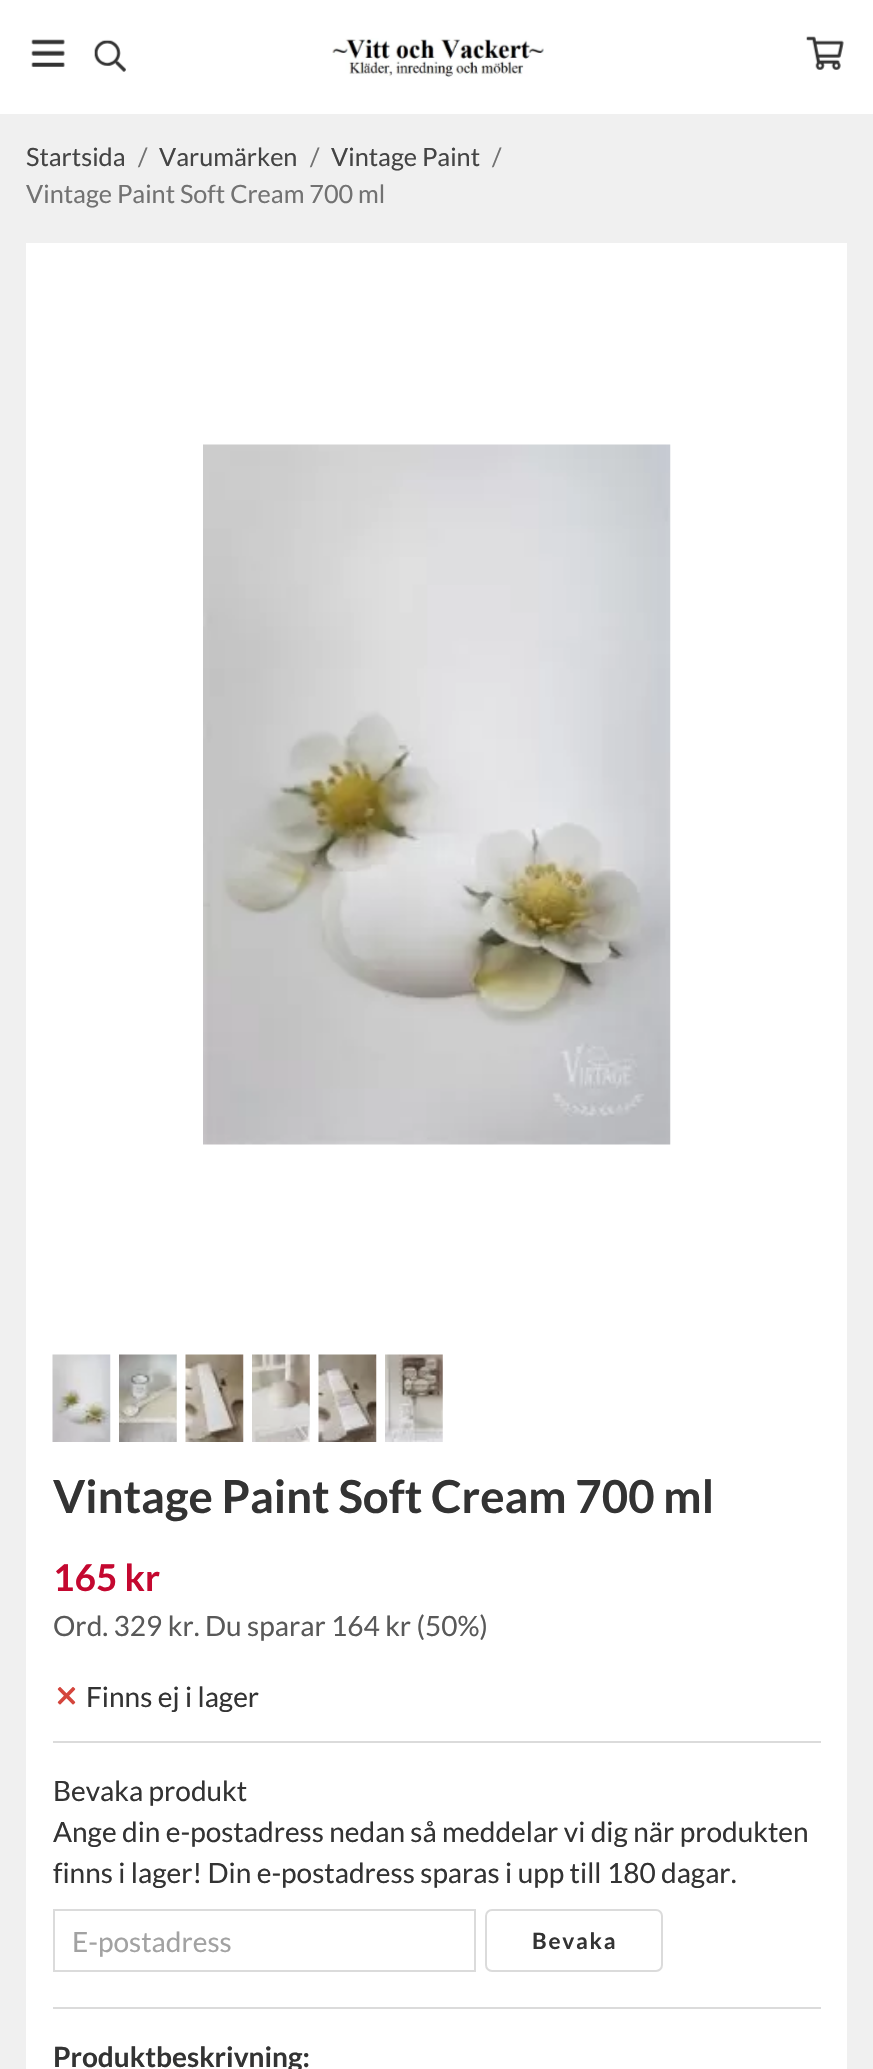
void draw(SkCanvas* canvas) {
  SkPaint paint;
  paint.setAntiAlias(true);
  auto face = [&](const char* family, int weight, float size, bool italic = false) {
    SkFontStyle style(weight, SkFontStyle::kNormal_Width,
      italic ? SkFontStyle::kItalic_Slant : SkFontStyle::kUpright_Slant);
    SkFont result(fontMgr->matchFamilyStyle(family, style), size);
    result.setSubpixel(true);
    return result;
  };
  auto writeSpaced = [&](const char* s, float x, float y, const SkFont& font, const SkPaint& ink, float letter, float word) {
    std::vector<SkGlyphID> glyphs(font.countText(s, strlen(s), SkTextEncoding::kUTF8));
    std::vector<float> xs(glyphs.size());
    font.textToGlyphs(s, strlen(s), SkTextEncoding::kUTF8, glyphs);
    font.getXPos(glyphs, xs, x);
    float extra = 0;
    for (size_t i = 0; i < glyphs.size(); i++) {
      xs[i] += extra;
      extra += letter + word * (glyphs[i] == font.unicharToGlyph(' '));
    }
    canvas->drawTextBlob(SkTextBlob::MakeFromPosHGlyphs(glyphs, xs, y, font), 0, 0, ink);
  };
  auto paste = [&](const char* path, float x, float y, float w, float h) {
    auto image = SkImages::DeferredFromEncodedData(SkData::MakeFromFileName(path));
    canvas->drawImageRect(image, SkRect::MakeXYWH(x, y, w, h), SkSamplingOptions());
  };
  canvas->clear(0xfff0f0f0);
  paint.setColor(0xffffffff);
  canvas->drawRect(SkRect::MakeXYWH(0, 0, 873, 114), paint);
  paste("img/1.png", 31, 39, 34, 28);
  paste("img/2.png", 94, 39, 32, 33);
  paste("img/3.png", 332, 38, 212, 39);
  paste("img/4.png", 806, 36, 38, 34);
  canvas->drawRect(SkRect::MakeXYWH(26, 243, 821, 1826), paint);
  paste("img/5.png", 203, 444, 468, 701);
  paste("img/6.png", 52, 1354, 59, 88);
  paste("img/7.png", 119, 1354, 58, 88);
  paste("img/8.png", 185, 1354, 59, 88);
  paste("img/9.png", 252, 1354, 58, 88);
  paste("img/10.png", 318, 1354, 59, 88);
  paste("img/11.png", 385, 1354, 58, 88);
  paste("img/12.png", 57, 1687, 19, 18);
  paint.setColor(0xffdbdbdb);
  canvas->drawRect(SkRect::MakeXYWH(53, 1741, 768, 2), paint);
  canvas->drawRect(SkRect::MakeXYWH(53, 2007, 768, 2), paint);
  paint.setStroke(true);
  paint.setStrokeWidth(2);
  canvas->drawRect(SkRect::MakeXYWH(54, 1910, 421, 61), paint);
  canvas->drawRoundRect(SkRect::MakeXYWH(486, 1910, 176, 61), 6, 6, paint);
  auto f0 = face("Lato", 400, 25.25f);
  paint.setStroke(false);
  paint.setColor(0xff444444);
  canvas->drawString("Startsida", 26, 166, f0, paint);
  paint.setColor(0xff727272);
  canvas->drawString("/", 138, 166, f0, paint);
  paint.setColor(0xff444444);
  canvas->drawString("Varumärken", 159, 166, f0, paint);
  paint.setColor(0xff727272);
  canvas->drawString("/", 310, 166, f0, paint);
  paint.setColor(0xff444444);
  canvas->drawString("Vintage Paint", 331, 166, f0, paint);
  paint.setColor(0xff727272);
  canvas->drawString("/", 492, 166, f0, paint);
  canvas->drawString("Vintage Paint Soft Cream 700 ml", 26, 203, f0, paint);
  auto f1 = face("Lato", 700, 45.5f);
  paint.setColor(0xff333333);
  canvas->drawString("Vintage Paint Soft Cream 700 ml", 53, 1513, f1, paint);
  auto f2 = face("Lato", 700, 37);
  paint.setColor(0xffc40830);
  canvas->drawString("165 kr", 53, 1591, f2, paint);
  auto f3 = face("Lato", 400, 28);
  paint.setColor(0xff595959);
  canvas->drawString("Ord. 329 kr. Du sparar 164 kr (50%)", 53, 1636, f3, paint);
  paint.setColor(0xff333333);
  {
    const struct { const char* s; float x, y; } items[] = {
      {"Finns ej i lager", 86, 1707},
      {"Bevaka produkt", 53, 1801},
      {"Ange din e-postadress nedan så meddelar vi dig när produkten", 53, 1842},
      {"finns i lager! Din e-postadress sparas i upp till 180 dagar.", 53, 1883},
    };
    for (auto [s, x, y] : items) {
      canvas->drawString(s, x, y, f3, paint);
    }
  }
  paint.setColor(0xffa2a2a2);
  canvas->drawString("E-postadress", 72, 1952, f3, paint);
  auto f4 = face("Lato", 700, 22.5f);
  paint.setColor(0xff333333);
  writeSpaced("Bevaka", 532, 1949, f4, paint, 1.75f, 0);
  auto f5 = face("Lato", 700, 28);
  canvas->drawString("Produktbeskrivning:", 53, 2067, f5, paint);
}
